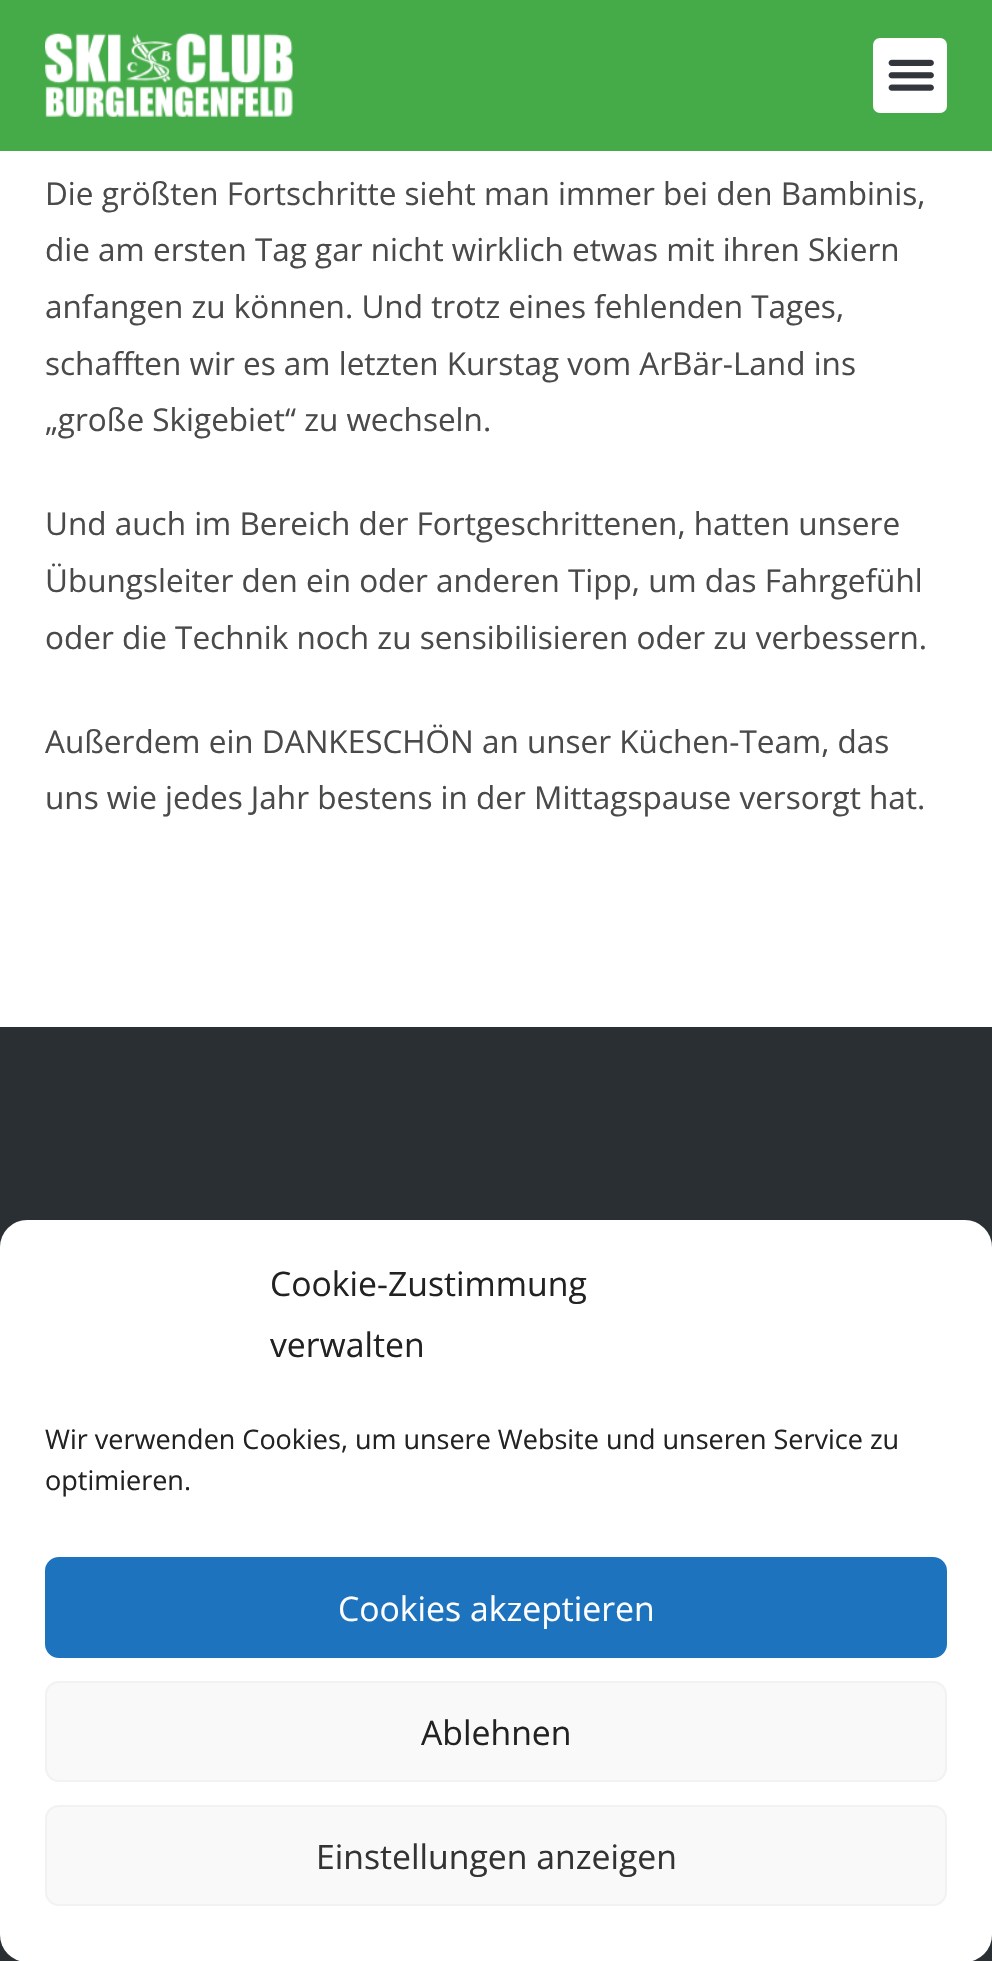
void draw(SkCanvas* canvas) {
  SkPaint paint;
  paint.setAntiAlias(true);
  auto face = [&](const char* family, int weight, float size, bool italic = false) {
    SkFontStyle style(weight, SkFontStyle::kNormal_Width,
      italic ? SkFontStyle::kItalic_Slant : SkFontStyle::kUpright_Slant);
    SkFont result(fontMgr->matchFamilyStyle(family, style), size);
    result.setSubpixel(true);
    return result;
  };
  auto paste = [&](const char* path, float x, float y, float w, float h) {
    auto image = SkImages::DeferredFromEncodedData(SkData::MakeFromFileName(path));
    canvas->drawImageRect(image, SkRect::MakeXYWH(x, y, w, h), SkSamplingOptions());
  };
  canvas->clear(0xffffffff);
  paint.setColor(0xff45ab48);
  canvas->drawRect(SkRect::MakeXYWH(0, 0, 992, 151), paint);
  paste("img/1.png", 45, 33, 248, 84);
  paint.setColor(0xffffffff);
  canvas->drawRoundRect(SkRect::MakeXYWH(873, 38, 74, 75), 7, 7, paint);
  paste("img/2.png", 888, 59, 46, 32);
  paint.setColor(0xff2a2f33);
  canvas->drawRect(SkRect::MakeXYWH(0, 1027, 992, 934), paint);
  paint.setColor(0xffffffff);
  canvas->drawRoundRect(SkRect::MakeXYWH(0, 1220, 992, 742), 27, 27, paint);
  paint.setColor(0xff1e73be);
  canvas->drawRoundRect(SkRect::MakeXYWH(46, 1558, 900, 99), 13, 13, paint);
  paint.setStroke(true);
  paint.setStrokeWidth(2);
  canvas->drawRoundRect(SkRect::MakeXYWH(46, 1558, 900, 99), 13, 13, paint);
  paint.setStroke(false);
  paint.setColor(0xfff9f9f9);
  canvas->drawRoundRect(SkRect::MakeXYWH(46, 1682, 900, 99), 13, 13, paint);
  paint.setStroke(true);
  paint.setColor(0xfff2f2f2);
  canvas->drawRoundRect(SkRect::MakeXYWH(46, 1682, 900, 99), 13, 13, paint);
  paint.setStroke(false);
  paint.setColor(0xfff9f9f9);
  canvas->drawRoundRect(SkRect::MakeXYWH(46, 1806, 900, 99), 13, 13, paint);
  paint.setStroke(true);
  paint.setColor(0xfff2f2f2);
  canvas->drawRoundRect(SkRect::MakeXYWH(46, 1806, 900, 99), 13, 13, paint);
  auto f0 = face("Open Sans", 400, 31.5f);
  paint.setStroke(false);
  paint.setColor(0xff4a4a4a);
  {
    const struct { const char* s; float x, y; } items[] = {
      {"Die größten Fortschritte sieht man immer bei den Bambinis,", 45, 205},
      {"die am ersten Tag gar nicht wirklich etwas mit ihren Skiern", 45, 261},
      {"anfangen zu können. Und trotz eines fehlenden Tages,", 45, 318},
      {"schafften wir es am letzten Kurstag vom ArBär-Land ins", 45, 375},
      {"„große Skigebiet“ zu wechseln.", 45, 431},
      {"Und auch im Bereich der Fortgeschrittenen, hatten unsere", 45, 535},
      {"Übungsleiter den ein oder anderen Tipp, um das Fahrgefühl", 45, 592},
      {"oder die Technik noch zu sensibilisieren oder zu verbessern.", 45, 649},
      {"Außerdem ein DANKESCHÖN an unser Küchen-Team, das", 45, 753},
      {"uns wie jedes Jahr bestens in der Mittagspause versorgt hat.", 45, 809},
    };
    for (auto [s, x, y] : items) {
      canvas->drawString(s, x, y, f0, paint);
    }
  }
  auto f1 = face("Open Sans", 400, 33.75f);
  paint.setColor(0xff222222);
  canvas->drawString("Cookie-Zustimmung", 270, 1296, f1, paint);
  canvas->drawString("verwalten", 270, 1357, f1, paint);
  auto f2 = face("Open Sans", 400, 27);
  canvas->drawString("Wir verwenden Cookies, um unsere Website und unseren Service zu", 45, 1449, f2, paint);
  canvas->drawString("optimieren.", 45, 1490, f2, paint);
  paint.setColor(0xffffffff);
  canvas->drawString("Cookies akzeptieren", 338, 1621, f1, paint);
  paint.setColor(0xff222222);
  canvas->drawString("Ablehnen", 421, 1745, f1, paint);
  paint.setColor(0xff333333);
  canvas->drawString("Einstellungen anzeigen", 316, 1869, f1, paint);
}
